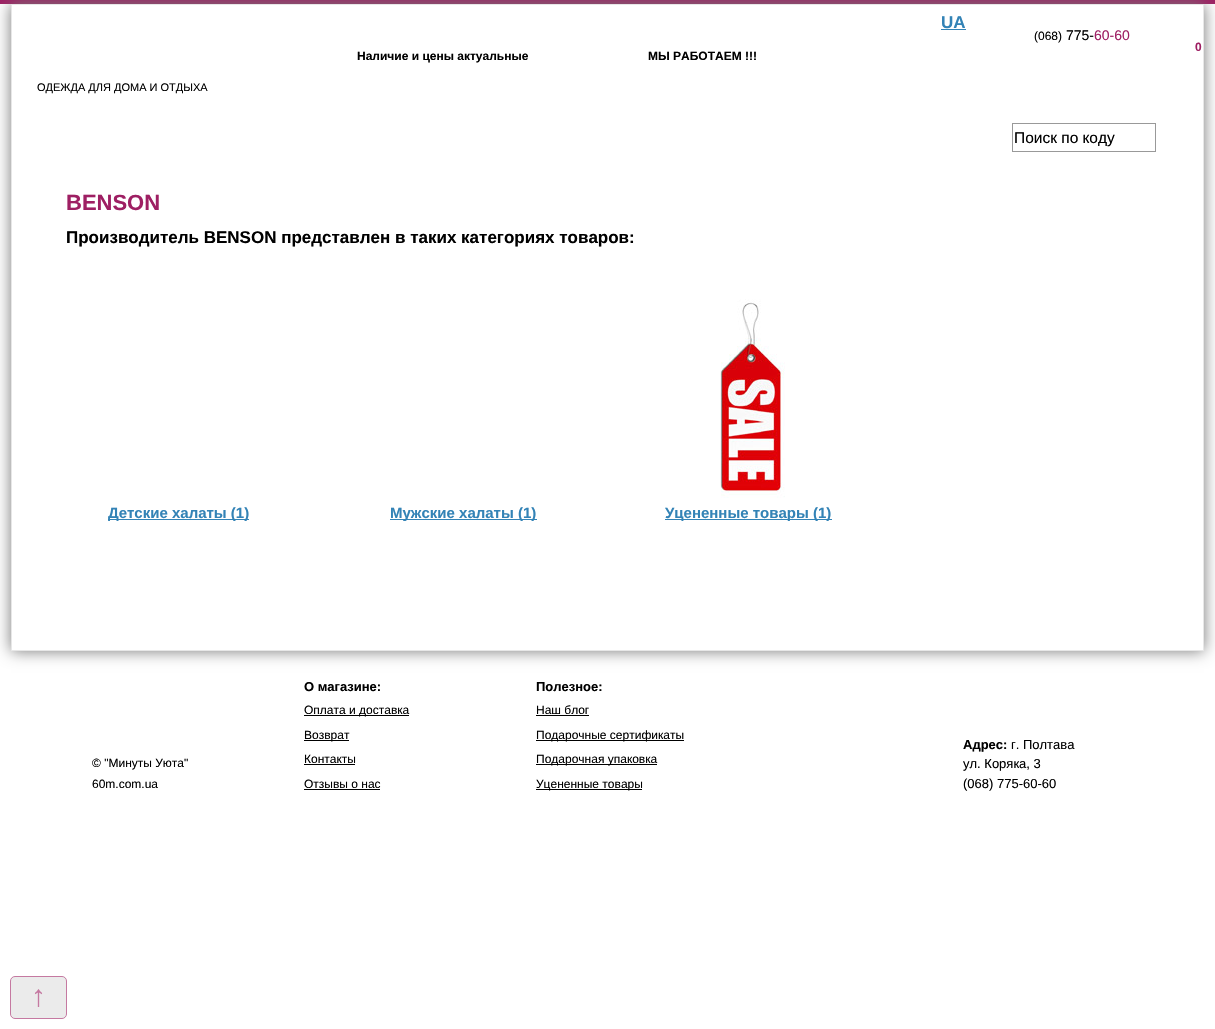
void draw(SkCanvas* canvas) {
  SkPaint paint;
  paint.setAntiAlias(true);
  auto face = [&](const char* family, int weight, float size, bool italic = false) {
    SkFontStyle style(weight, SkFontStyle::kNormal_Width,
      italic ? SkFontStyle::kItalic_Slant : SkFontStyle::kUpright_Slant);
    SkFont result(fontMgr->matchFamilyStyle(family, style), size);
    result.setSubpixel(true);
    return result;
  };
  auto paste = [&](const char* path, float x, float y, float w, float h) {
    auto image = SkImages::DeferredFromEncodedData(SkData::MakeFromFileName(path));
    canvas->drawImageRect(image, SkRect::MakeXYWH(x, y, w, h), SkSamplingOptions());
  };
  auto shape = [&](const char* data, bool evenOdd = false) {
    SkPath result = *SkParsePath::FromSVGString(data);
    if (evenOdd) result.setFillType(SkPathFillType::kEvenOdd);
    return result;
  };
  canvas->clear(0xffffffff);
  paint.setColor(0xff9e1f63);
  canvas->drawRect(SkRect::MakeXYWH(0, 0, 1215, 4), paint);
  canvas->save();
  canvas->clipPath(shape("M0 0H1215V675H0ZM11 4H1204V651H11Z", true), true);
  paint.setColor(0xff777777);
  paint.setMaskFilter(SkMaskFilter::MakeBlur(kNormal_SkBlurStyle, 7.5f));
  canvas->drawRect(SkRect::MakeXYWH(11, 4, 1193, 647), paint);
  paint.setMaskFilter(nullptr);
  canvas->restore();
  paint.setStroke(true);
  paint.setStrokeWidth(1);
  paint.setColor(0xffe7e7e7);
  canvas->drawRect(SkRect::MakeXYWH(11.5f, 4.5f, 1192, 646), paint);
  paint.setStroke(false);
  paint.setColor(0xff3383b6);
  canvas->drawRect(SkRect::MakeXYWH(941, 29, 25, 1), paint);
  paint.setStroke(true);
  paint.setColor(0xff999999);
  canvas->drawRect(SkRect::MakeXYWH(1012.5f, 123.5f, 143, 28), paint);
  paint.setStroke(false);
  paint.setColor(0xff3383b6);
  canvas->drawRect(SkRect::MakeXYWH(108, 519, 141, 1), paint);
  canvas->drawRect(SkRect::MakeXYWH(390, 519, 147, 1), paint);
  paste("img/1.png", 720, 299, 65, 199);
  {
    const struct { float x, y, w, h; SkColor color; } items[] = {
      {665, 519, 167, 1, 0xff3383b6},
      {304, 715, 105, 1, 0xff000000},
      {304, 740, 45, 1, 0xff000000},
      {304, 764, 51, 1, 0xff000000},
      {304, 789, 76, 1, 0xff000000},
      {536, 715, 53, 1, 0xff000000},
      {536, 740, 148, 1, 0xff000000},
      {536, 764, 121, 1, 0xff000000},
      {536, 789, 106, 1, 0xff000000},
    };
    for (auto [x, y, w, h, color] : items) {
      paint.setColor(color);
      canvas->drawRect(SkRect::MakeXYWH(x, y, w, h), paint);
    }
  }
  paint.setColor(0xffebebeb);
  canvas->drawRoundRect(SkRect::MakeXYWH(10.5f, 976.5f, 56, 42), 4.5f, 4.5f, paint);
  paint.setStroke(true);
  paint.setColor(0xffc579a1);
  canvas->drawRoundRect(SkRect::MakeXYWH(10.5f, 976.5f, 56, 42), 4.5f, 4.5f, paint);
  auto f0 = face("Liberation Sans", 700, 17);
  paint.setStroke(false);
  paint.setColor(0xff3383b6);
  canvas->drawString("UA", 941, 28, f0, paint);
  auto f1 = face("Liberation Sans", 400, 12);
  paint.setColor(0xff000000);
  canvas->drawString("(068)", 1034, 40, f1, paint);
  auto f2 = face("Liberation Sans", 400, 14);
  canvas->drawString("775-", 1066, 40, f2, paint);
  paint.setColor(0xff9e1f63);
  canvas->drawString("60-60", 1094, 40, f2, paint);
  auto f3 = face("Liberation Sans", 700, 12);
  canvas->drawString("0", 1195, 51, f3, paint);
  paint.setColor(0xff000000);
  canvas->drawString("Наличие и цены актуальные", 357, 60, f3, paint);
  canvas->drawString("МЫ РАБОТАЕМ !!!", 648, 60, f3, paint);
  auto f4 = face("Liberation Sans", 400, 11);
  canvas->drawString("ОДЕЖДА ДЛЯ ДОМА И ОТДЫХА", 37, 91, f4, paint);
  auto f5 = face("Liberation Sans", 400, 15.5f);
  canvas->drawString("Поиск по коду", 1014, 143, f5, paint);
  auto f6 = face("Liberation Sans", 700, 22);
  paint.setColor(0xff9e1f63);
  canvas->drawString("BENSON", 66, 210, f6, paint);
  paint.setColor(0xff000000);
  canvas->drawString("Производитель BENSON представлен в таких категориях товаров:", 66, 243, f0, paint);
  auto f7 = face("Liberation Sans", 700, 15);
  paint.setColor(0xff3383b6);
  {
    const struct { const char* s; float x, y; } items[] = {
      {"Детские халаты (1)", 108, 518},
      {"Мужские халаты (1)", 390, 518},
      {"Уцененные товары (1)", 665, 518},
    };
    for (auto [s, x, y] : items) {
      canvas->drawString(s, x, y, f7, paint);
    }
  }
  paint.setColor(0xff000000);
  canvas->drawString("© \"Минуты Уюта\"", 92, 767, f1, paint);
  canvas->drawString("60m.com.ua", 92, 788, f1, paint);
  auto f8 = face("Liberation Sans", 700, 13);
  canvas->drawString("О магазине:", 304, 691, f8, paint);
  {
    const struct { const char* s; float x, y; } items[] = {
      {"Оплата и доставка", 304, 714},
      {"Возврат", 304, 739},
      {"Контакты", 304, 763},
      {"Отзывы о нас", 304, 788},
    };
    for (auto [s, x, y] : items) {
      canvas->drawString(s, x, y, f1, paint);
    }
  }
  canvas->drawString("Полезное:", 536, 691, f8, paint);
  {
    const struct { const char* s; float x, y; } items[] = {
      {"Наш блог", 536, 714},
      {"Подарочные сертификаты", 536, 739},
      {"Подарочная упаковка", 536, 763},
      {"Уцененные товары", 536, 788},
    };
    for (auto [s, x, y] : items) {
      canvas->drawString(s, x, y, f1, paint);
    }
  }
  canvas->drawString("Адрес:", 963, 749, f8, paint);
  auto f9 = face("Liberation Sans", 400, 13);
  {
    const struct { const char* s; float x, y; } items[] = {
      {"г. Полтава", 1011, 749},
      {"ул. Коряка, 3", 963, 768},
      {"(068) 775-60-60", 963, 788},
    };
    for (auto [s, x, y] : items) {
      canvas->drawString(s, x, y, f9, paint);
    }
  }
  auto f10 = face("Liberation Sans", 400, 30);
  paint.setColor(0xffc579a1);
  canvas->drawString("↑", 31, 1006, f10, paint);
}
